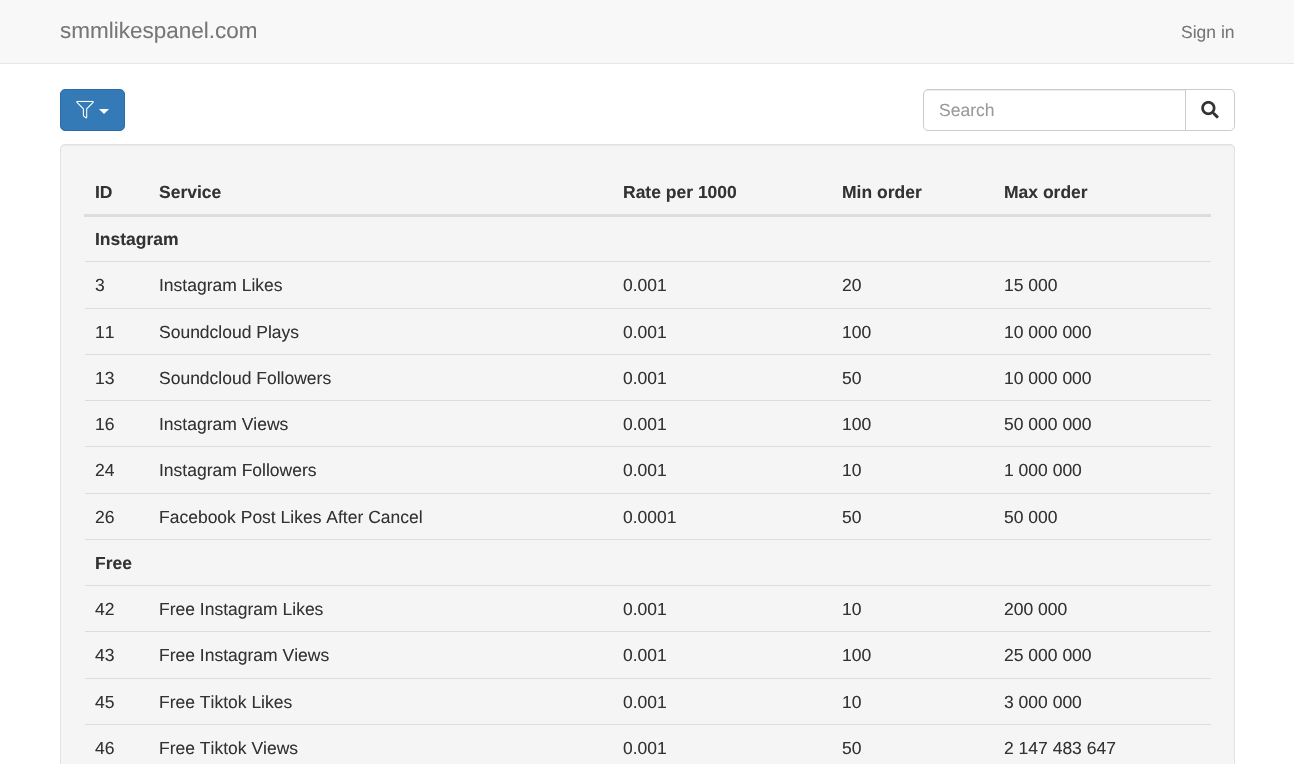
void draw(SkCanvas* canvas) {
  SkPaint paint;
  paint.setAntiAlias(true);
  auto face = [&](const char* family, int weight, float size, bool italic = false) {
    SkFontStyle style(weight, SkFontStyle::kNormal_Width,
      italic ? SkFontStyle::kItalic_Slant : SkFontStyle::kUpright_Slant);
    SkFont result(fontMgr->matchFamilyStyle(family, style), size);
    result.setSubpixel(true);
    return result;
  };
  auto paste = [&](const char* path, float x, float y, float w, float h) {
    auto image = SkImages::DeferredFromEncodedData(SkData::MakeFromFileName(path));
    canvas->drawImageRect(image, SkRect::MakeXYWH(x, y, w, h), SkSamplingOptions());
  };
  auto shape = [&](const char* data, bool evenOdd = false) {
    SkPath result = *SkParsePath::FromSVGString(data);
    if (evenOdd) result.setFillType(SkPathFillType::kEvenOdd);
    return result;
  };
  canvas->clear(0xffffffff);
  paint.setColor(0xfff8f8f8);
  canvas->drawRect(SkRect::MakeXYWH(0, 0, 1294, 63), paint);
  paint.setColor(0xffe7e7e7);
  canvas->drawRect(SkRect::MakeXYWH(0, 63, 1294, 1), paint);
  paint.setColor(0xff337ab7);
  canvas->drawRoundRect(SkRect::MakeXYWH(60.5f, 89.5f, 64, 41), 4.5f, 4.5f, paint);
  paint.setStroke(true);
  paint.setStrokeWidth(1);
  paint.setColor(0xff2e6da4);
  canvas->drawRoundRect(SkRect::MakeXYWH(60.5f, 89.5f, 64, 41), 4.5f, 4.5f, paint);
  paste("img/1.png", 76, 100, 18, 19);
  paint.setStroke(false);
  paint.setColor(0xffffffff);
  canvas->drawPath(shape("M99 109H109L104 114Z"), paint);
  paint.setColor(0xffececec);
  canvas->drawPath(shape("M928 91H1185V90H928C925 90 924 92 924 95C924 93 925 91 928 91Z"), paint);
  paint.setStroke(true);
  paint.setColor(0xffcccccc);
  canvas->drawPath(shape("M928 89.5H1185.5V130.5H928C925.5 130.5 923.5 128.5 923.5 126V94C923.5 91.5 925.5 89.5 928 89.5Z"), paint);
  paint.setStroke(false);
  paint.setColor(0xffffffff);
  canvas->drawPath(shape("M1185.5 89.5H1230C1232.5 89.5 1234.5 91.5 1234.5 94V126C1234.5 128.5 1232.5 130.5 1230 130.5H1185.5Z"), paint);
  paint.setStroke(true);
  paint.setColor(0xffcccccc);
  canvas->drawPath(shape("M1185.5 89.5H1230C1232.5 89.5 1234.5 91.5 1234.5 94V126C1234.5 128.5 1232.5 130.5 1230 130.5H1185.5Z"), paint);
  paste("img/2.png", 1201, 100, 18, 19);
  paint.setStroke(false);
  paint.setColor(0xfff5f5f5);
  canvas->drawRoundRect(SkRect::MakeXYWH(60, 144, 1175, 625), 5, 5, paint);
  paint.setColor(0xffe9e9e9);
  canvas->drawPath(shape("M65 146H1230C1232 146 1234 148 1234 150C1234 147 1233 145 1230 145H65C62 145 61 147 61 150C61 148 63 146 65 146Z"), paint);
  paint.setStroke(true);
  paint.setColor(0xffe3e3e3);
  canvas->drawRoundRect(SkRect::MakeXYWH(60.5f, 144.5f, 1174, 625), 4.5f, 4.5f, paint);
  paint.setStroke(false);
  {
    const struct { float x, y, w, h; SkColor color; } items[] = {
      {84, 214, 1127, 3, 0xffdddddd},
      {85, 261, 1126, 1, 0xffdddddd},
      {85, 308, 1126, 1, 0xffdddddd},
      {85, 354, 1126, 1, 0xffdddddd},
      {85, 400, 1126, 1, 0xffdddddd},
      {85, 446, 1126, 1, 0xffdddddd},
      {85, 493, 1126, 1, 0xffdddddd},
      {85, 539, 1126, 1, 0xffdddddd},
      {85, 585, 1126, 1, 0xffdddddd},
      {85, 631, 1126, 1, 0xffdddddd},
      {85, 678, 1126, 1, 0xffdddddd},
      {85, 724, 1126, 1, 0xffdddddd},
    };
    for (auto [x, y, w, h, color] : items) {
      paint.setColor(color);
      canvas->drawRect(SkRect::MakeXYWH(x, y, w, h), paint);
    }
  }
  auto f0 = face("Liberation Sans", 400, 22.5f);
  paint.setColor(0xff777777);
  canvas->drawString("smmlikespanel.com", 60, 38, f0, paint);
  auto f1 = face("Liberation Sans", 400, 17.5f);
  canvas->drawString("Sign in", 1181, 38, f1, paint);
  paint.setColor(0xff999999);
  canvas->drawString("Search", 939, 116, f1, paint);
  auto f2 = face("Liberation Sans", 700, 17.5f);
  paint.setColor(0xff333333);
  {
    const struct { const char* s; float x, y; } items[] = {
      {"ID", 95, 198},
      {"Service", 159, 198},
      {"Rate per 1000", 623, 198},
      {"Min order", 842, 198},
      {"Max order", 1004, 198},
      {"Instagram", 95, 245},
    };
    for (auto [s, x, y] : items) {
      canvas->drawString(s, x, y, f2, paint);
    }
  }
  {
    const struct { const char* s; float x, y; } items[] = {
      {"3", 95, 291},
      {"Instagram Likes", 159, 291},
      {"0.001", 623, 291},
      {"20", 842, 291},
      {"15 000", 1004, 291},
      {"11", 95, 338},
      {"Soundcloud Plays", 159, 338},
      {"0.001", 623, 338},
      {"100", 842, 338},
      {"10 000 000", 1004, 338},
      {"13", 95, 384},
      {"Soundcloud Followers", 159, 384},
      {"0.001", 623, 384},
      {"50", 842, 384},
      {"10 000 000", 1004, 384},
      {"16", 95, 430},
      {"Instagram Views", 159, 430},
      {"0.001", 623, 430},
      {"100", 842, 430},
      {"50 000 000", 1004, 430},
      {"24", 95, 476},
      {"Instagram Followers", 159, 476},
      {"0.001", 623, 476},
      {"10", 842, 476},
      {"1 000 000", 1004, 476},
      {"26", 95, 523},
      {"Facebook Post Likes After Cancel", 159, 523},
      {"0.0001", 623, 523},
      {"50", 842, 523},
      {"50 000", 1004, 523},
    };
    for (auto [s, x, y] : items) {
      canvas->drawString(s, x, y, f1, paint);
    }
  }
  canvas->drawString("Free", 95, 569, f2, paint);
  {
    const struct { const char* s; float x, y; } items[] = {
      {"42", 95, 615},
      {"Free Instagram Likes", 159, 615},
      {"0.001", 623, 615},
      {"10", 842, 615},
      {"200 000", 1004, 615},
      {"43", 95, 661},
      {"Free Instagram Views", 159, 661},
      {"0.001", 623, 661},
      {"100", 842, 661},
      {"25 000 000", 1004, 661},
      {"45", 95, 708},
      {"Free Tiktok Likes", 159, 708},
      {"0.001", 623, 708},
      {"10", 842, 708},
      {"3 000 000", 1004, 708},
      {"46", 95, 754},
      {"Free Tiktok Views", 159, 754},
      {"0.001", 623, 754},
      {"50", 842, 754},
      {"2 147 483 647", 1004, 754},
    };
    for (auto [s, x, y] : items) {
      canvas->drawString(s, x, y, f1, paint);
    }
  }
}
